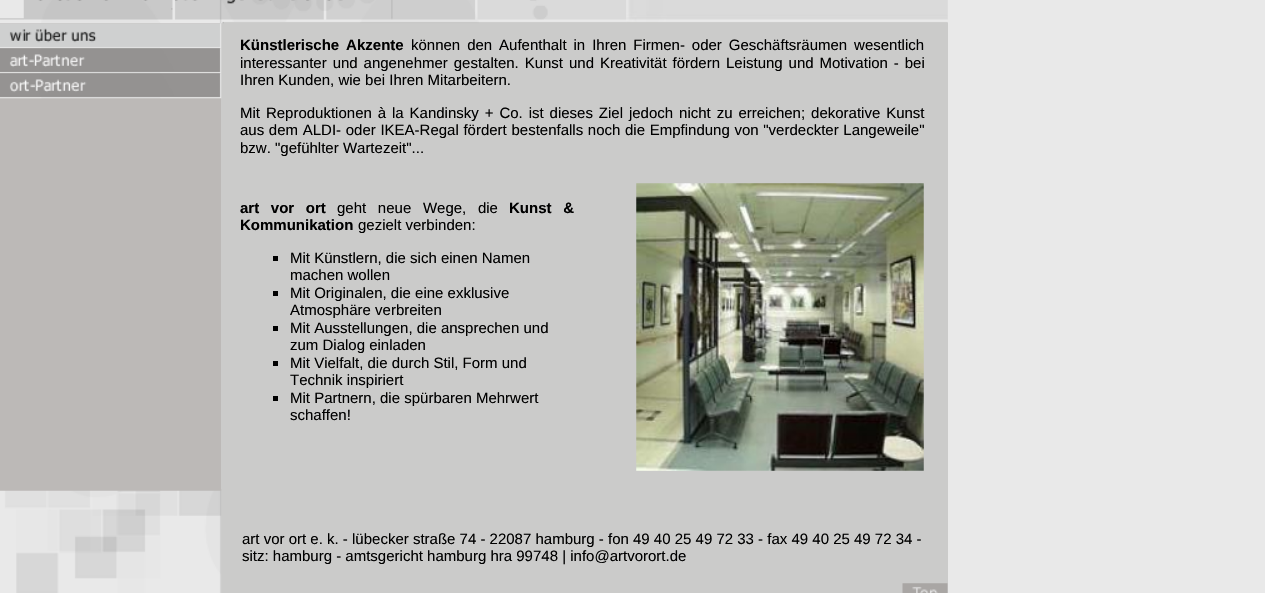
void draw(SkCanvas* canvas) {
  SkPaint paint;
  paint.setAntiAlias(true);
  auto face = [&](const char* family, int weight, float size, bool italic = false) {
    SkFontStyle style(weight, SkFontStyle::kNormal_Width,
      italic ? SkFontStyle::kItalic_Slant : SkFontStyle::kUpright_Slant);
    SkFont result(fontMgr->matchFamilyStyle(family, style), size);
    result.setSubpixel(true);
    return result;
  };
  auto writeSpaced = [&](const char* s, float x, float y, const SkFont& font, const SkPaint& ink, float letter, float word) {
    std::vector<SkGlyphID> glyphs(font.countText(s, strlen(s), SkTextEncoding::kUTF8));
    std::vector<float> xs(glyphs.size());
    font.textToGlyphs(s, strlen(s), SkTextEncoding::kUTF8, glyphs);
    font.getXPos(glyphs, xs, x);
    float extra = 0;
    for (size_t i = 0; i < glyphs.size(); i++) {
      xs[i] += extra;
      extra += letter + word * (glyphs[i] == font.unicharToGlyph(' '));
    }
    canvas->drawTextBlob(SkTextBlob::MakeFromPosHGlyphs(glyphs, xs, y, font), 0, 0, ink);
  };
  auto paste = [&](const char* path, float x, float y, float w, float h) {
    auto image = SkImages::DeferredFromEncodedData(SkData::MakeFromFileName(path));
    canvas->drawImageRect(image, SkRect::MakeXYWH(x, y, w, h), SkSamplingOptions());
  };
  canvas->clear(0xffe9e9e9);
  paste("img/1.png", 548, 0, 79, 23);
  paint.setColor(0xffbcb9b7);
  canvas->drawRect(SkRect::MakeXYWH(0, 23, 221, 466), paint);
  paint.setColor(0xffcbcbca);
  canvas->drawRect(SkRect::MakeXYWH(221, 23, 727, 570), paint);
  paste("img/2.png", 0, 0, 548, 24);
  paste("img/3.png", 626, 0, 322, 23);
  paste("img/4.png", 626, 0, 322, 23);
  paste("img/5.png", 0, 23, 222, 26);
  paste("img/6.png", 0, 48, 222, 26);
  paste("img/7.png", 0, 73, 222, 26);
  {
    const struct { float x, y, w, h; SkColor color; } items[] = {
      {273, 256, 5, 5, 0xff000000},
      {273, 291, 5, 5, 0xff000000},
      {273, 326, 5, 5, 0xff000000},
      {273, 361, 5, 5, 0xff000000},
      {273, 396, 5, 5, 0xff000000},
    };
    for (auto [x, y, w, h, color] : items) {
      paint.setColor(color);
      canvas->drawRect(SkRect::MakeXYWH(x, y, w, h), paint);
    }
  }
  paste("img/8.png", 636, 183, 288, 288);
  paste("img/9.png", 0, 489, 222, 104);
  paste("img/10.png", 902, 583, 46, 10);
  auto f0 = face("Liberation Sans", 700, 15);
  writeSpaced("Künstlerische Akzente", 240, 50, f0, paint, 0, 2.75f);
  auto f1 = face("Liberation Sans", 400, 15);
  writeSpaced("können den Aufenthalt in Ihren Firmen- oder Geschäftsräumen wesentlich", 411, 50, f1, paint, 0, 2.75f);
  writeSpaced("interessanter und angenehmer gestalten. Kunst und Kreativität fördern Leistung und Motivation - bei", 240, 68, f1, paint, 0, 1.75f);
  canvas->drawString("Ihren Kunden, wie bei Ihren Mitarbeitern.", 240, 85, f1, paint);
  writeSpaced("Mit Reproduktionen à la Kandinsky + Co. ist dieses Ziel jedoch nicht zu erreichen; dekorative Kunst", 240, 118, f1, paint, 0, 1.75f);
  writeSpaced("aus dem ALDI- oder IKEA-Regal fördert bestenfalls noch die Empfindung von \"verdeckter Langeweile\"", 240, 135, f1, paint, 0, 0.5f);
  canvas->drawString("bzw. \"gefühlter Wartezeit\"...", 240, 153, f1, paint);
  writeSpaced("art vor ort", 240, 213, f0, paint, 0, 7.5f);
  writeSpaced("geht neue Wege, die", 337, 213, f1, paint, 0, 7.5f);
  writeSpaced("Kunst &", 509, 213, f0, paint, 0, 7.5f);
  canvas->drawString("Kommunikation", 240, 230, f0, paint);
  {
    const struct { const char* s; float x, y; } items[] = {
      {"gezielt verbinden:", 358, 230},
      {"Mit Künstlern, die sich einen Namen", 290, 263},
      {"machen wollen", 290, 280},
      {"Mit Originalen, die eine exklusive", 290, 298},
      {"Atmosphäre verbreiten", 290, 315},
      {"Mit Ausstellungen, die ansprechen und", 290, 333},
      {"zum Dialog einladen", 290, 350},
      {"Mit Vielfalt, die durch Stil, Form und", 290, 368},
      {"Technik inspiriert", 290, 385},
      {"Mit Partnern, die spürbaren Mehrwert", 290, 403},
      {"schaffen!", 290, 420},
      {"art vor ort e. k. - lübecker straße 74 - 22087 hamburg - fon 49 40 25 49 72 33 - fax 49 40 25 49 72 34 -", 242, 544},
      {"sitz: hamburg - amtsgericht hamburg hra 99748 | info@artvorort.de", 242, 561},
    };
    for (auto [s, x, y] : items) {
      canvas->drawString(s, x, y, f1, paint);
    }
  }
}
